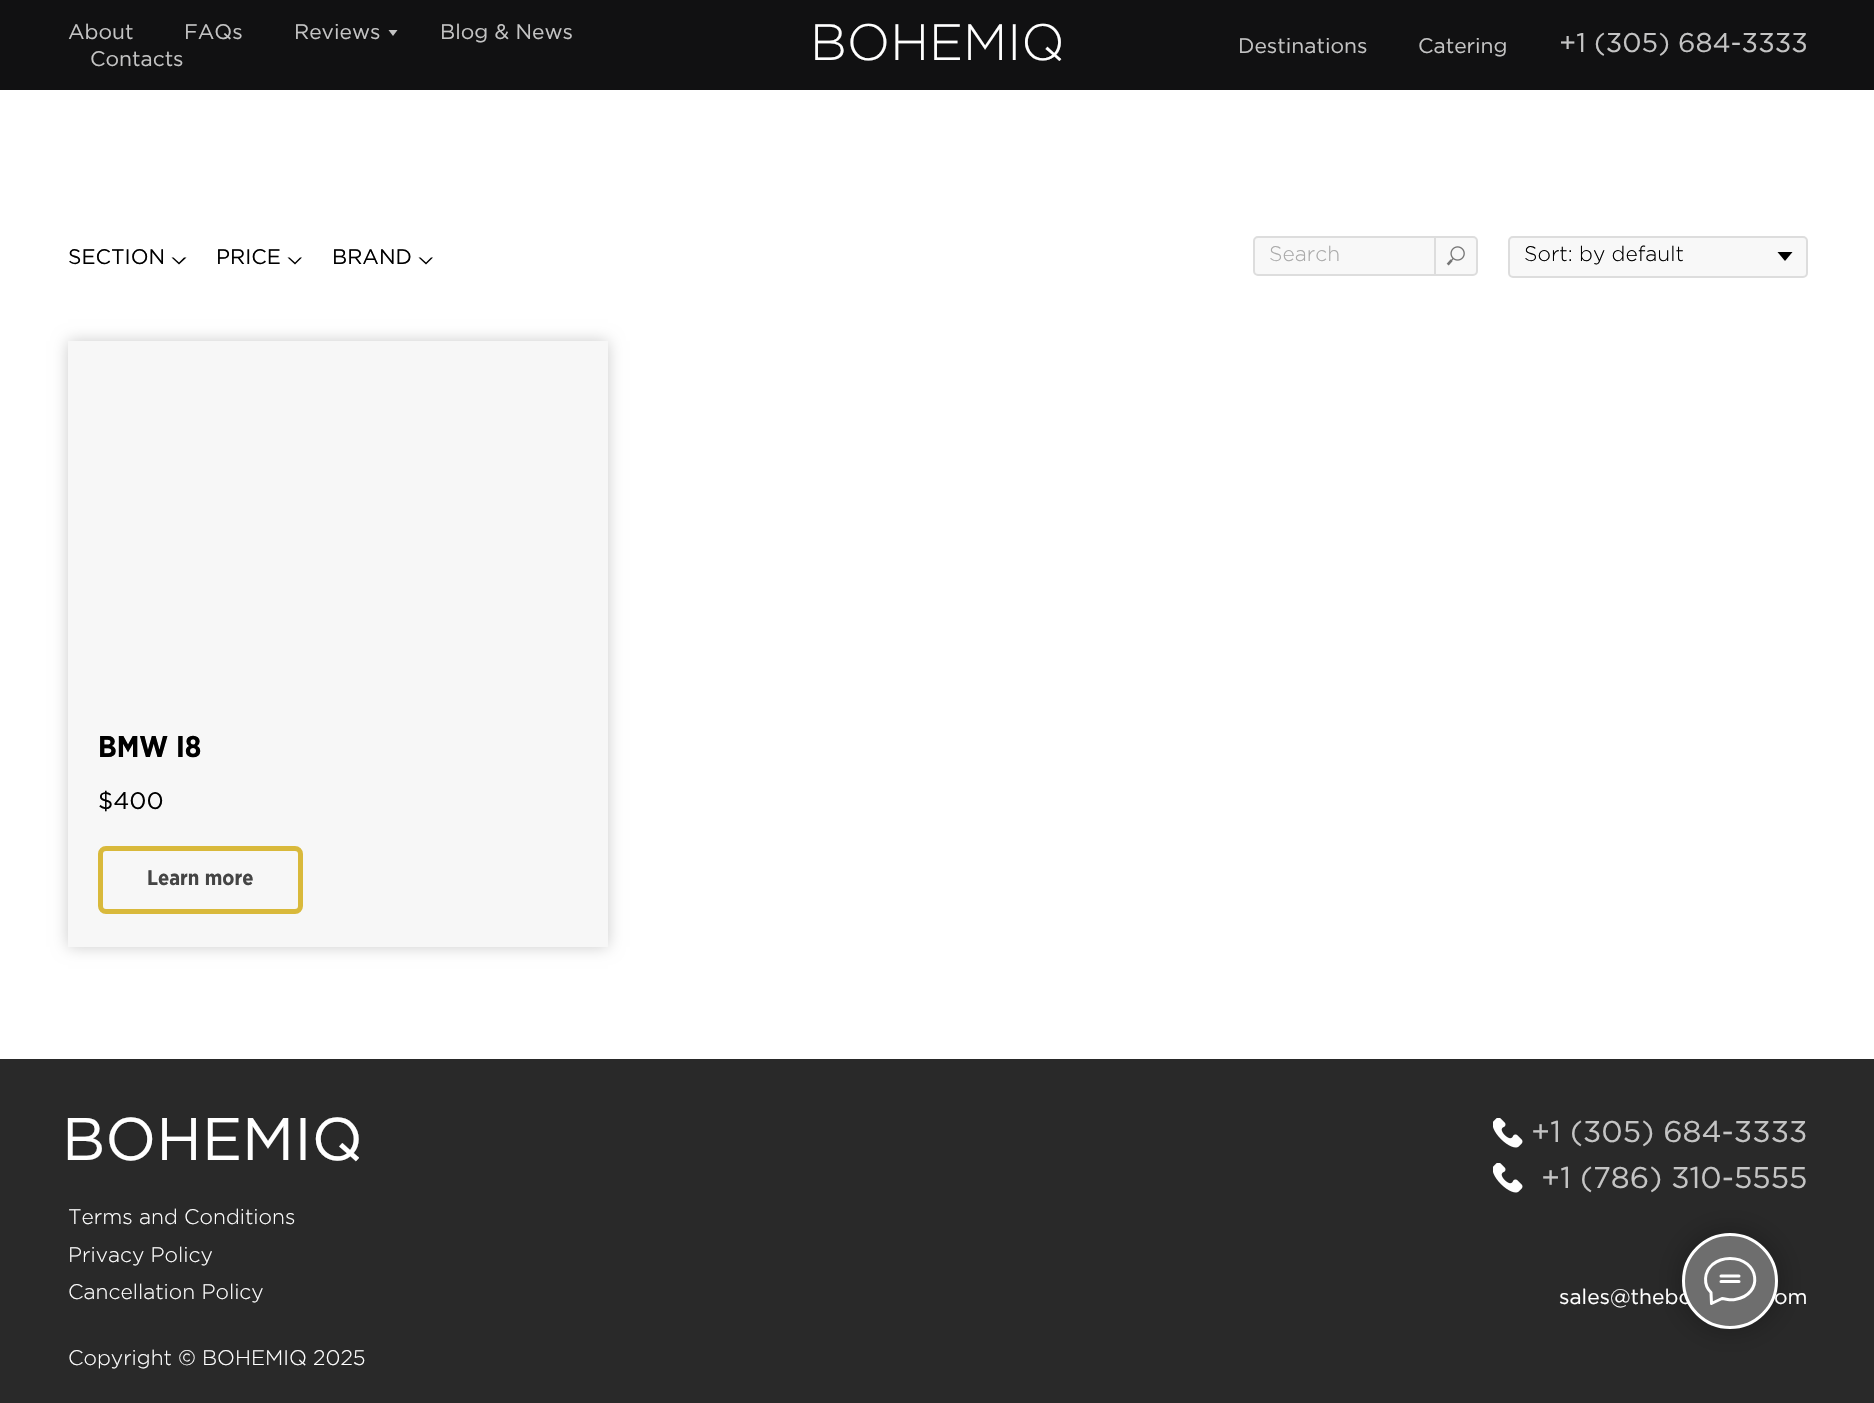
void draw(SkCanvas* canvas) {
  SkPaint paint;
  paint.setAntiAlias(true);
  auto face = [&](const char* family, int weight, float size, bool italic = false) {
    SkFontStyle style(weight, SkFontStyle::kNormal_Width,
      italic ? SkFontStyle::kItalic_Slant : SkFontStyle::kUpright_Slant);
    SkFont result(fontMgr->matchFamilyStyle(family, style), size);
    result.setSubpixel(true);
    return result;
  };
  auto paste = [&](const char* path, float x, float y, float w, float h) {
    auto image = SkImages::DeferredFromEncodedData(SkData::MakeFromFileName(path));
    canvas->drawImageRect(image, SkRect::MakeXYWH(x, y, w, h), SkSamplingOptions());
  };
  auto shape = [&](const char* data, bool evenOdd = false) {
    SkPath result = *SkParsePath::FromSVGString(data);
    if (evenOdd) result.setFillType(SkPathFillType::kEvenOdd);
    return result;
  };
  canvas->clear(0xffffffff);
  paint.setColor(0xff111112);
  canvas->drawRect(SkRect::MakeXYWH(0, 0, 1874, 90), paint);
  paint.setColor(0xffc4c4c4);
  canvas->drawPath(shape("M388.5 30H397.5L393 36Z"), paint);
  paint.setColor(0xff292929);
  canvas->drawRect(SkRect::MakeXYWH(0, 1059, 1874, 344), paint);
  paint.setColor(0x4d000000);
  paint.setMaskFilter(SkMaskFilter::MakeBlur(kNormal_SkBlurStyle, 15));
  canvas->drawRoundRect(SkRect::MakeXYWH(1682, 1233, 96, 96), 48, 48, paint);
  paint.setMaskFilter(nullptr);
  paint.setColor(0xff000000);
  canvas->drawPath(shape("M186.5 257.5L179 264.5V262.5L184 257.5ZM179 264.5L171.5 257.5H173.5L179 262.5Z"), paint);
  canvas->drawPath(shape("M302 257.5L295 264.5V262.5L300 257.5ZM295 264.5L287.5 257.5H289.5L295 262.5Z"), paint);
  canvas->drawPath(shape("M433 257.5L426 264.5V262.5L431 257.5ZM426 264.5L418.5 257.5H420.5L426 262.5Z"), paint);
  paint.setColor(0xfff8f8f8);
  canvas->drawRoundRect(SkRect::MakeXYWH(1254, 237, 223, 38), 4, 4, paint);
  paint.setStroke(true);
  paint.setStrokeWidth(2);
  paint.setColor(0xffdddddd);
  canvas->drawRoundRect(SkRect::MakeXYWH(1254, 237, 223, 38), 4, 4, paint);
  paint.setStroke(false);
  canvas->drawRect(SkRect::MakeXYWH(1434, 236, 2, 40), paint);
  paste("img/1.png", 1446, 246, 19, 20);
  paint.setColor(0xfff8f8f8);
  canvas->drawRoundRect(SkRect::MakeXYWH(1509, 237, 298, 40), 4, 4, paint);
  paint.setStroke(true);
  paint.setColor(0xffdddddd);
  canvas->drawRoundRect(SkRect::MakeXYWH(1509, 237, 298, 40), 4, 4, paint);
  paint.setStroke(false);
  paint.setColor(0xff000000);
  canvas->drawPath(shape("M1777.5 252H1792.5L1785 261Z"), paint);
  paint.setColor(0x33000000);
  paint.setMaskFilter(SkMaskFilter::MakeBlur(kNormal_SkBlurStyle, 7.5f));
  canvas->drawRect(SkRect::MakeXYWH(68, 341, 540, 606), paint);
  paint.setMaskFilter(nullptr);
  paint.setColor(0xfff7f7f7);
  canvas->drawRect(SkRect::MakeXYWH(68, 341, 540, 606), paint);
  paint.setStroke(true);
  paint.setStrokeWidth(5);
  paint.setColor(0xffd9b93b);
  canvas->drawRoundRect(SkRect::MakeXYWH(100.5f, 848.5f, 200, 63), 5.5f, 5.5f, paint);
  paste("img/2.png", 1493, 1118, 30, 30);
  paste("img/2.png", 1493, 1163, 30, 30);
  auto f0 = face("Gotham", 400, 21);
  paint.setStroke(false);
  paint.setColor(0xffc4c4c4);
  {
    const struct { const char* s; float x, y; } items[] = {
      {"About", 68, 39},
      {"FAQs", 184, 39},
      {"Reviews", 294, 39},
      {"Blog & News", 440, 39},
      {"Contacts", 90, 66},
    };
    for (auto [s, x, y] : items) {
      canvas->drawString(s, x, y, f0, paint);
    }
  }
  auto f1 = face("Gotham", 300, 51);
  paint.setColor(0xffffffff);
  canvas->drawString("BOHEMIQ", 810, 60, f1, paint);
  paint.setColor(0xffc4c4c4);
  canvas->drawString("Destinations", 1238, 53, f0, paint);
  canvas->drawString("Catering", 1418, 53, f0, paint);
  auto f2 = face("Gotham", 400, 27);
  canvas->drawString("+1 (305) 684-3333", 1559, 52, f2, paint);
  paint.setColor(0xff000000);
  {
    const struct { const char* s; float x, y; } items[] = {
      {"SECTION", 68, 264},
      {"PRICE", 216, 264},
      {"BRAND", 332, 264},
    };
    for (auto [s, x, y] : items) {
      canvas->drawString(s, x, y, f0, paint);
    }
  }
  auto f3 = face("Gotham", 300, 21);
  paint.setColor(0xffaaaaaa);
  canvas->drawString("Search", 1269, 261, f3, paint);
  paint.setColor(0xff000000);
  canvas->drawString("Sort: by default", 1524, 261, f3, paint);
  auto f4 = face("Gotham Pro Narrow", 700, 30);
  canvas->drawString("BMW I8", 98, 757, f4, paint);
  auto f5 = face("Gotham", 400, 24);
  canvas->drawString("$400", 98, 809, f5, paint);
  auto f6 = face("Gotham Pro Narrow", 700, 21);
  paint.setColor(0xff454545);
  canvas->drawString("Learn more", 147, 885, f6, paint);
  auto f7 = face("Gotham", 400, 60);
  paint.setColor(0xffffffff);
  canvas->drawString("BOHEMIQ", 62, 1160, f7, paint);
  auto f8 = face("Gotham", 400, 30);
  paint.setColor(0xffc4c4c4);
  canvas->drawString("+1 (305) 684-3333", 1531, 1142, f8, paint);
  canvas->drawString("+1 (786) 310-5555", 1541, 1188, f8, paint);
  paint.setColor(0xffffffff);
  {
    const struct { const char* s; float x, y; } items[] = {
      {"Terms and Conditions", 68, 1224},
      {"Privacy Policy", 68, 1262},
      {"Cancellation Policy", 68, 1299},
    };
    for (auto [s, x, y] : items) {
      canvas->drawString(s, x, y, f3, paint);
    }
  }
  canvas->drawString("sales@thebo", 1559, 1304, f0, paint);
  canvas->drawString("om", 1774, 1304, f0, paint);
  paint.setColor(0xff6e6e6e);
  canvas->drawCircle(1730, 1281, 46.5f, paint);
  paint.setStroke(true);
  paint.setStrokeWidth(3);
  paint.setColor(0xffffffff);
  canvas->drawCircle(1730, 1281, 46.5f, paint);
  paint.setStrokeCap(SkPaint::kRound_Cap);
  paint.setStrokeJoin(SkPaint::kRound_Join);
  canvas->drawPath(shape("M1721 1276H1739M1721 1281.5H1739M1711 1292.5C1703 1284.5 1704 1272 1712.5 1264.5C1717.5 1260.5 1724 1258.5 1730 1258.5C1759.5 1258.5 1764.5 1294.5 1735 1299.5C1730 1300.5 1727 1299 1722 1298.5L1711.5 1303.5Z"), paint);
  paint.setStroke(false);
  canvas->drawString("Copyright © BOHEMIQ 2025", 68, 1365, f3, paint);
}
